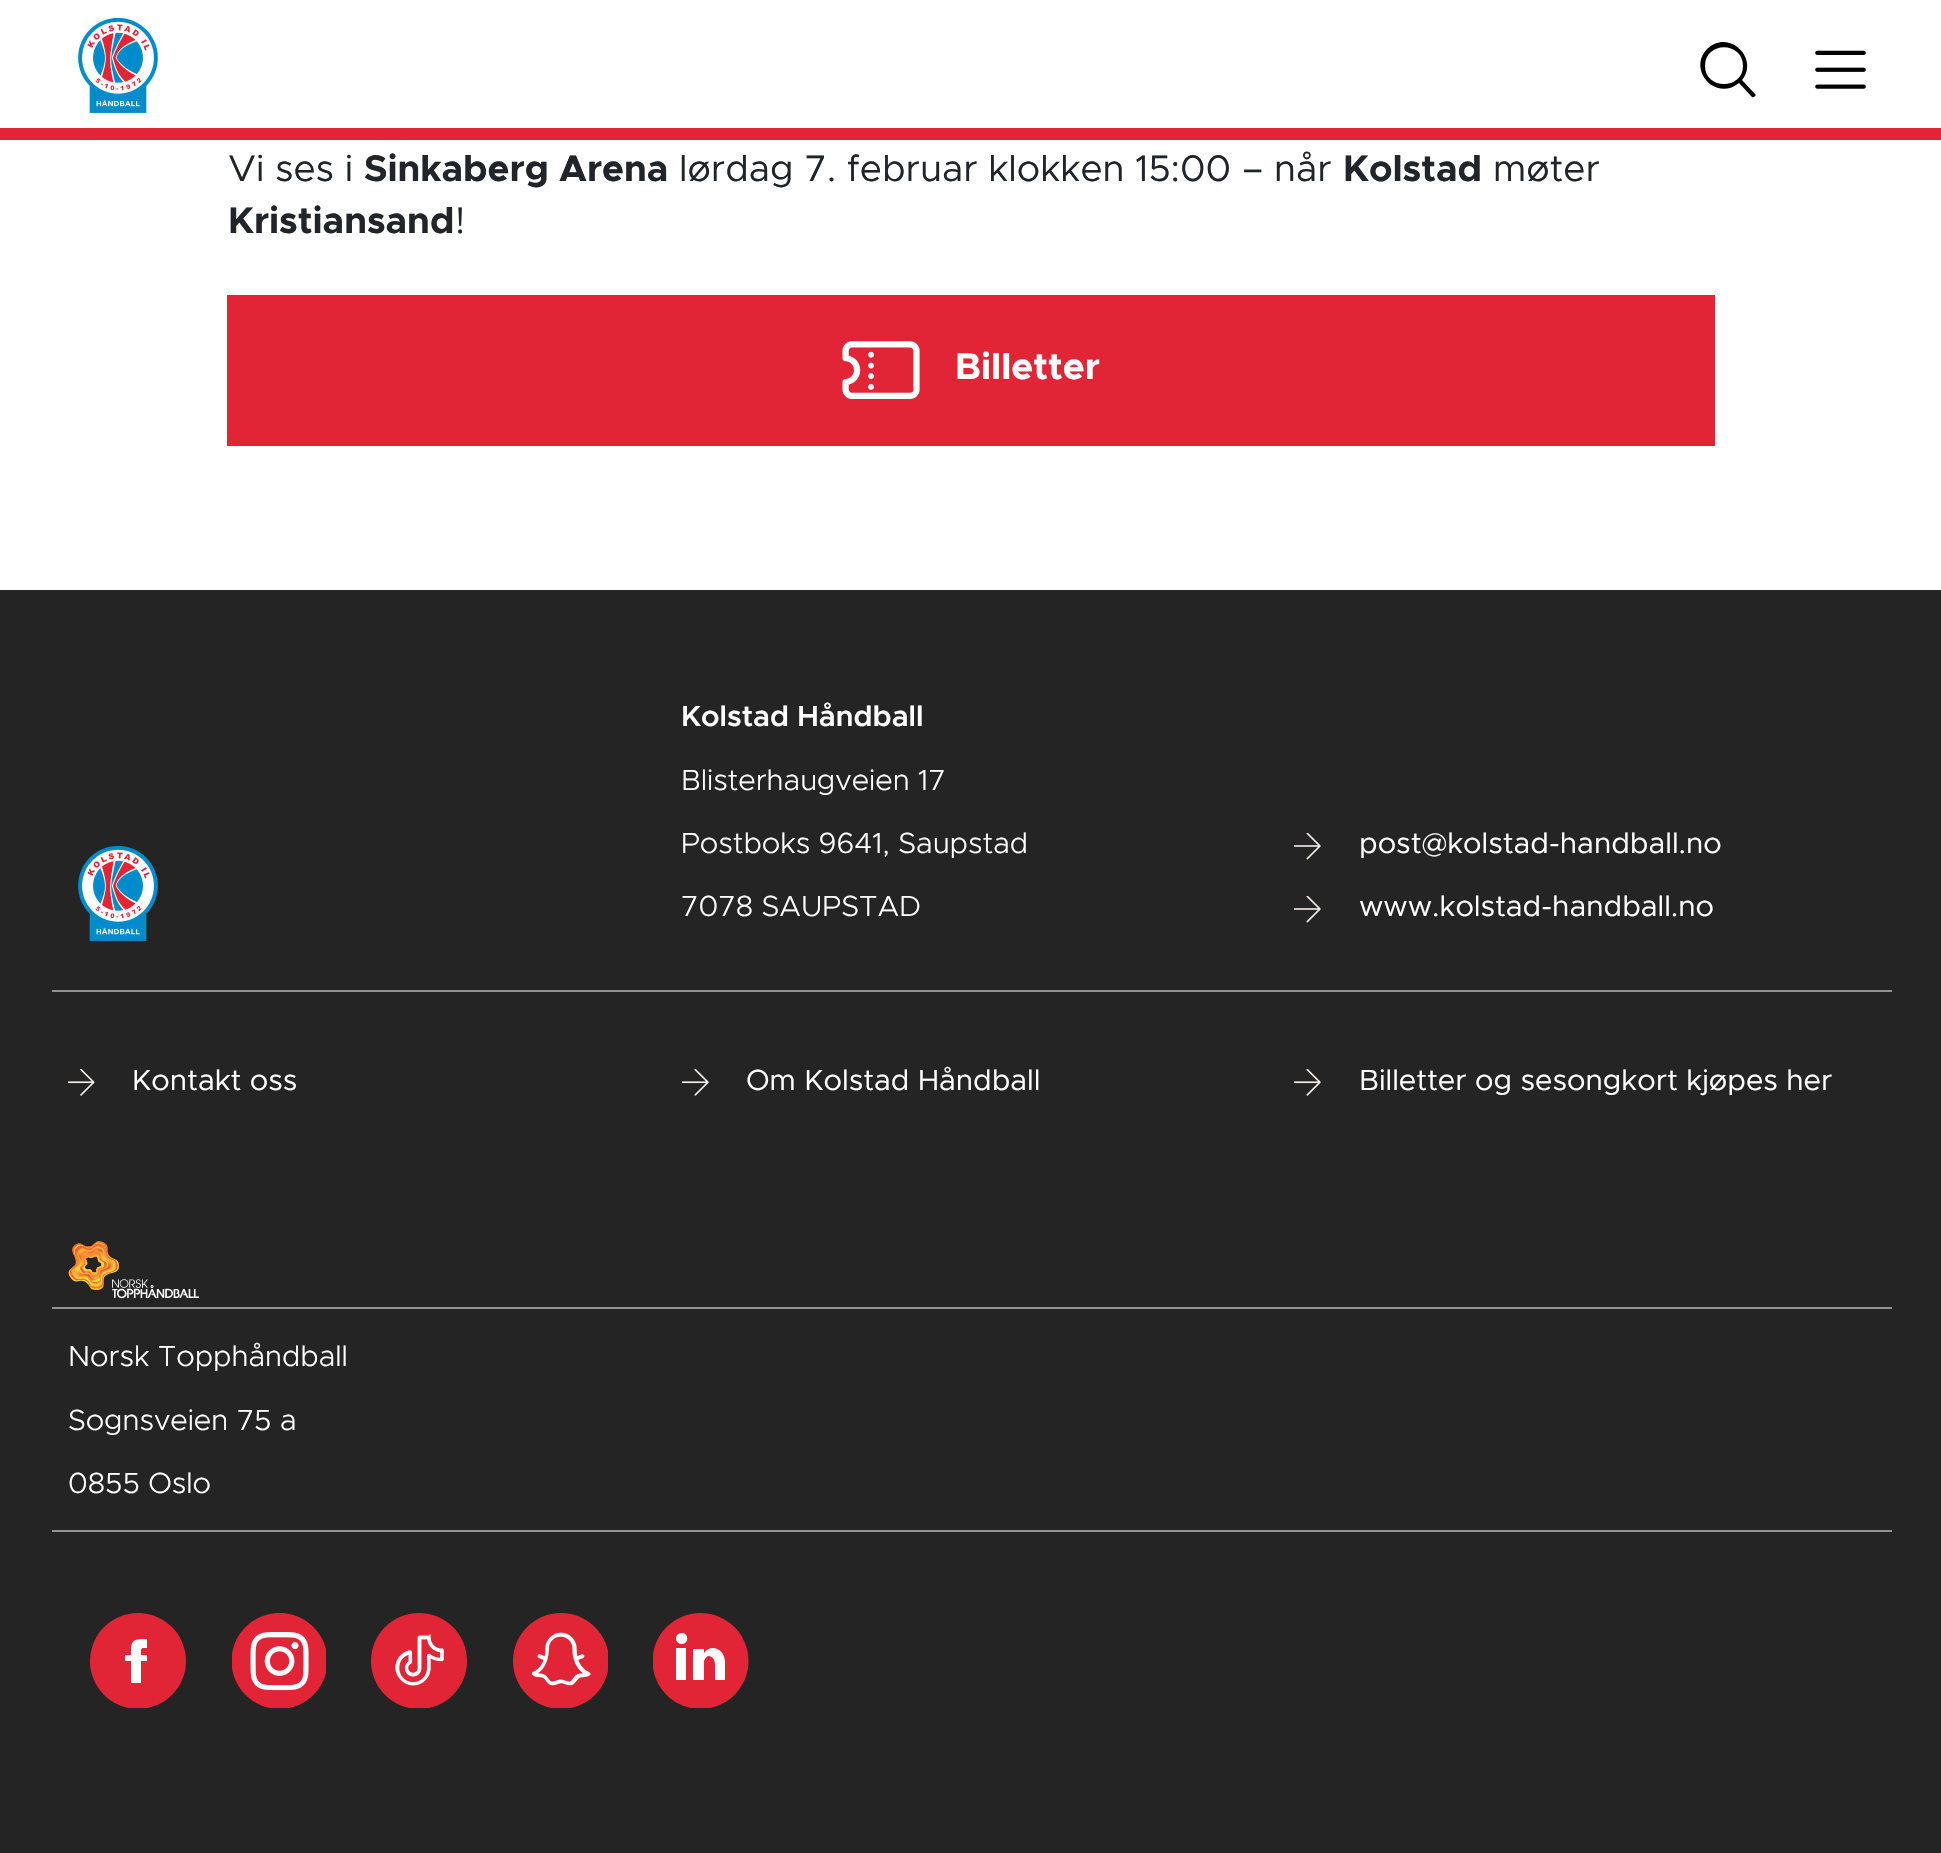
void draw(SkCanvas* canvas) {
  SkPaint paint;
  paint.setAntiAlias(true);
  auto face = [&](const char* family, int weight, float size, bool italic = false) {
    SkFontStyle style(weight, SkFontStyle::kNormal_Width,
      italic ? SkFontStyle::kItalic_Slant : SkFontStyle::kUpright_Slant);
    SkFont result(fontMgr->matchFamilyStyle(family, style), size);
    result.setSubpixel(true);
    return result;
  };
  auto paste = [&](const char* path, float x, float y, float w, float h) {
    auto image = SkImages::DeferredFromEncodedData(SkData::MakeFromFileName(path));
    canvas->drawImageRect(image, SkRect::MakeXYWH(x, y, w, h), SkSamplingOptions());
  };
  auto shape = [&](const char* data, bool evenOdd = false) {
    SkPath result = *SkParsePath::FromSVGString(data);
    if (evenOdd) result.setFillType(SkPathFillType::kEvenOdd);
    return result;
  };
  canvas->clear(0xffffffff);
  paste("img/1.png", 78, 17, 80, 96);
  paint.setColor(0xff000000);
  canvas->drawPath(shape("M1755 94L1742 80C1760 58 1728 28 1707 49C1687 70 1716 102 1739 83L1752 97C1754 98 1757 95 1755 94ZM1705 66C1705 41 1743 41 1743 66C1743 90 1705 90 1705 66Z"), paint);
  paste("img/2.png", 1815, 50, 51, 39);
  paint.setColor(0xffe12537);
  canvas->drawRect(SkRect::MakeXYWH(0, 128, 1941, 12), paint);
  canvas->drawRect(SkRect::MakeXYWH(227, 295, 1488, 151), paint);
  paste("img/3.png", 842, 341, 78, 58);
  paint.setColor(0xff242424);
  canvas->drawRect(SkRect::MakeXYWH(0, 590, 1941, 1263), paint);
  paint.setColor(0xff929292);
  canvas->drawRect(SkRect::MakeXYWH(52, 990, 1840, 2), paint);
  paste("img/4.png", 78, 845, 80, 96);
  paste("img/5.png", 1294, 833, 27, 27);
  paste("img/5.png", 1294, 896, 27, 27);
  paste("img/6.png", 68, 1069, 27, 27);
  paste("img/7.png", 682, 1069, 27, 27);
  paste("img/7.png", 1294, 1069, 27, 27);
  canvas->drawRect(SkRect::MakeXYWH(52, 1307, 1840, 2), paint);
  paste("img/8.png", 68, 1241, 131, 58);
  canvas->drawRect(SkRect::MakeXYWH(52, 1530, 1840, 2), paint);
  canvas->save();
  canvas->clipRect(SkRect::MakeXYWH(90, 1613, 97, 95));
  paint.setColor(0xffe12537);
  canvas->drawCircle(138, 1661, 48, paint);
  canvas->restore();
  paint.setColor(0xffffffff);
  canvas->drawPath(shape("M147 1648C140 1648 141 1648 141 1655H147V1661H141V1683H131V1661H125V1655H131C131 1640 132 1639 147 1639Z"), paint);
  paste("img/9.png", 232, 1613, 94, 95);
  paste("img/10.png", 371, 1613, 96, 95);
  paste("img/11.png", 513, 1613, 95, 95);
  canvas->save();
  canvas->clipRect(SkRect::MakeXYWH(653, 1613, 96, 95));
  paint.setColor(0xffe12537);
  canvas->drawCircle(700.5f, 1661, 48, paint);
  canvas->restore();
  paint.setColor(0xffffffff);
  canvas->drawPath(shape("M725 1662V1680H715V1669C715 1665 716 1657 709 1656C707 1656 705 1658 704 1661V1680H693V1649H704V1653C711 1643 725 1649 725 1662ZM682 1633C674 1633 674 1644 682 1644C689 1644 689 1633 682 1633ZM676 1680H686V1648H676Z"), paint);
  auto f0 = face("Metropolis", 400, 37.1f);
  paint.setColor(0xff212529);
  canvas->drawString("Vi ses i", 228, 181, f0, paint);
  auto f1 = face("Metropolis", 700, 37.1f);
  canvas->drawString("Sinkaberg Arena", 364, 181, f1, paint);
  canvas->drawString("lørdag 7. februar klokken 15:00 – når", 679, 181, f0, paint);
  canvas->drawString("Kolstad", 1343, 181, f1, paint);
  canvas->drawString("møter", 1493, 181, f0, paint);
  canvas->drawString("Kristiansand", 228, 233, f1, paint);
  canvas->drawString("!", 455, 233, f0, paint);
  paint.setColor(0xffffffff);
  canvas->drawString("Billetter", 955, 379, f1, paint);
  auto f2 = face("Metropolis", 600, 29.25f);
  canvas->drawString("Kolstad Håndball", 681, 726, f2, paint);
  auto f3 = face("Metropolis", 300, 29.25f);
  {
    const struct { const char* s; float x, y; } items[] = {
      {"Blisterhaugveien 17", 681, 790},
      {"Postboks 9641, Saupstad", 681, 853},
      {"7078 SAUPSTAD", 681, 916},
    };
    for (auto [s, x, y] : items) {
      canvas->drawString(s, x, y, f3, paint);
    }
  }
  auto f4 = face("Metropolis", 400, 29.25f);
  {
    const struct { const char* s; float x, y; } items[] = {
      {"post@kolstad-handball.no", 1359, 853},
      {"www.kolstad-handball.no", 1359, 916},
      {"Kontakt oss", 132, 1090},
      {"Om Kolstad Håndball", 746, 1090},
      {"Billetter og sesongkort kjøpes her", 1359, 1090},
    };
    for (auto [s, x, y] : items) {
      canvas->drawString(s, x, y, f4, paint);
    }
  }
  {
    const struct { const char* s; float x, y; } items[] = {
      {"Norsk Topphåndball", 68, 1366},
      {"Sognsveien 75 a", 68, 1430},
      {"0855 Oslo", 68, 1493},
    };
    for (auto [s, x, y] : items) {
      canvas->drawString(s, x, y, f3, paint);
    }
  }
}
